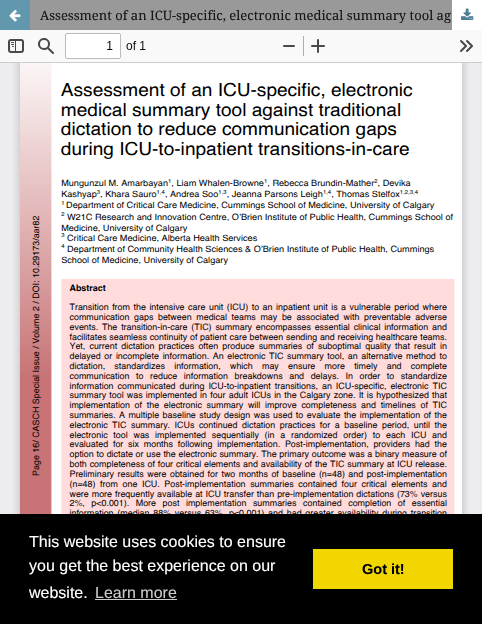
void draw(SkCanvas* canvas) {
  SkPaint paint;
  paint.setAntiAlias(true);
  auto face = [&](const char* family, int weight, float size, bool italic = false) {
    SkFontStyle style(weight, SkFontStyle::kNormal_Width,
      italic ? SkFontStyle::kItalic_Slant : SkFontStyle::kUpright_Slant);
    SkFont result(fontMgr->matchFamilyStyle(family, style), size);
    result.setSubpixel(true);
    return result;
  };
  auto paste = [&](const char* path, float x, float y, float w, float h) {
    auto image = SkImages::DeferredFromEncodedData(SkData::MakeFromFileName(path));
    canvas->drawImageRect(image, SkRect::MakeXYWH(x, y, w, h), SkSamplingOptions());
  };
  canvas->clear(0xffffffff);
  paint.setColor(0xff999999);
  canvas->drawRect(SkRect::MakeXYWH(30, 0, 422, 30), paint);
  paint.setColor(0xff6298ae);
  canvas->drawRect(SkRect::MakeXYWH(0, 0, 30, 30), paint);
  paste("img/1.png", 9, 10, 12, 12);
  paste("img/2.png", 461, 8, 13, 12);
  paste("img/3.png", 0, 30, 482, 484);
  {
    const struct { float x, y, w, h; SkColor color; } items[] = {
      {0, 514, 482, 110, 0xff000000},
      {95, 599, 82, 1, 0xffcccccc},
      {313, 549, 140, 40, 0xfff1d600},
    };
    for (auto [x, y, w, h, color] : items) {
      paint.setColor(color);
      canvas->drawRect(SkRect::MakeXYWH(x, y, w, h), paint);
    }
  }
  auto f0 = face("Noto Serif", 400, 13);
  paint.setColor(0xff181818);
  canvas->drawString("Assessment of an ICU-specific, electronic medical summary tool ag", 40, 20, f0, paint);
  auto f1 = face("Liberation Sans", 400, 16);
  paint.setColor(0xffffffff);
  {
    const struct { const char* s; float x, y; } items[] = {
      {"This website uses cookies to ensure", 29, 547},
      {"you get the best experience on our", 29, 571},
      {"website.", 29, 598},
    };
    for (auto [s, x, y] : items) {
      canvas->drawString(s, x, y, f1, paint);
    }
  }
  paint.setColor(0xffcccccc);
  canvas->drawString("Learn more", 95, 598, f1, paint);
  auto f2 = face("Liberation Sans", 700, 14.5f);
  paint.setColor(0xff000000);
  canvas->drawString("Got it!", 362, 574, f2, paint);
}
